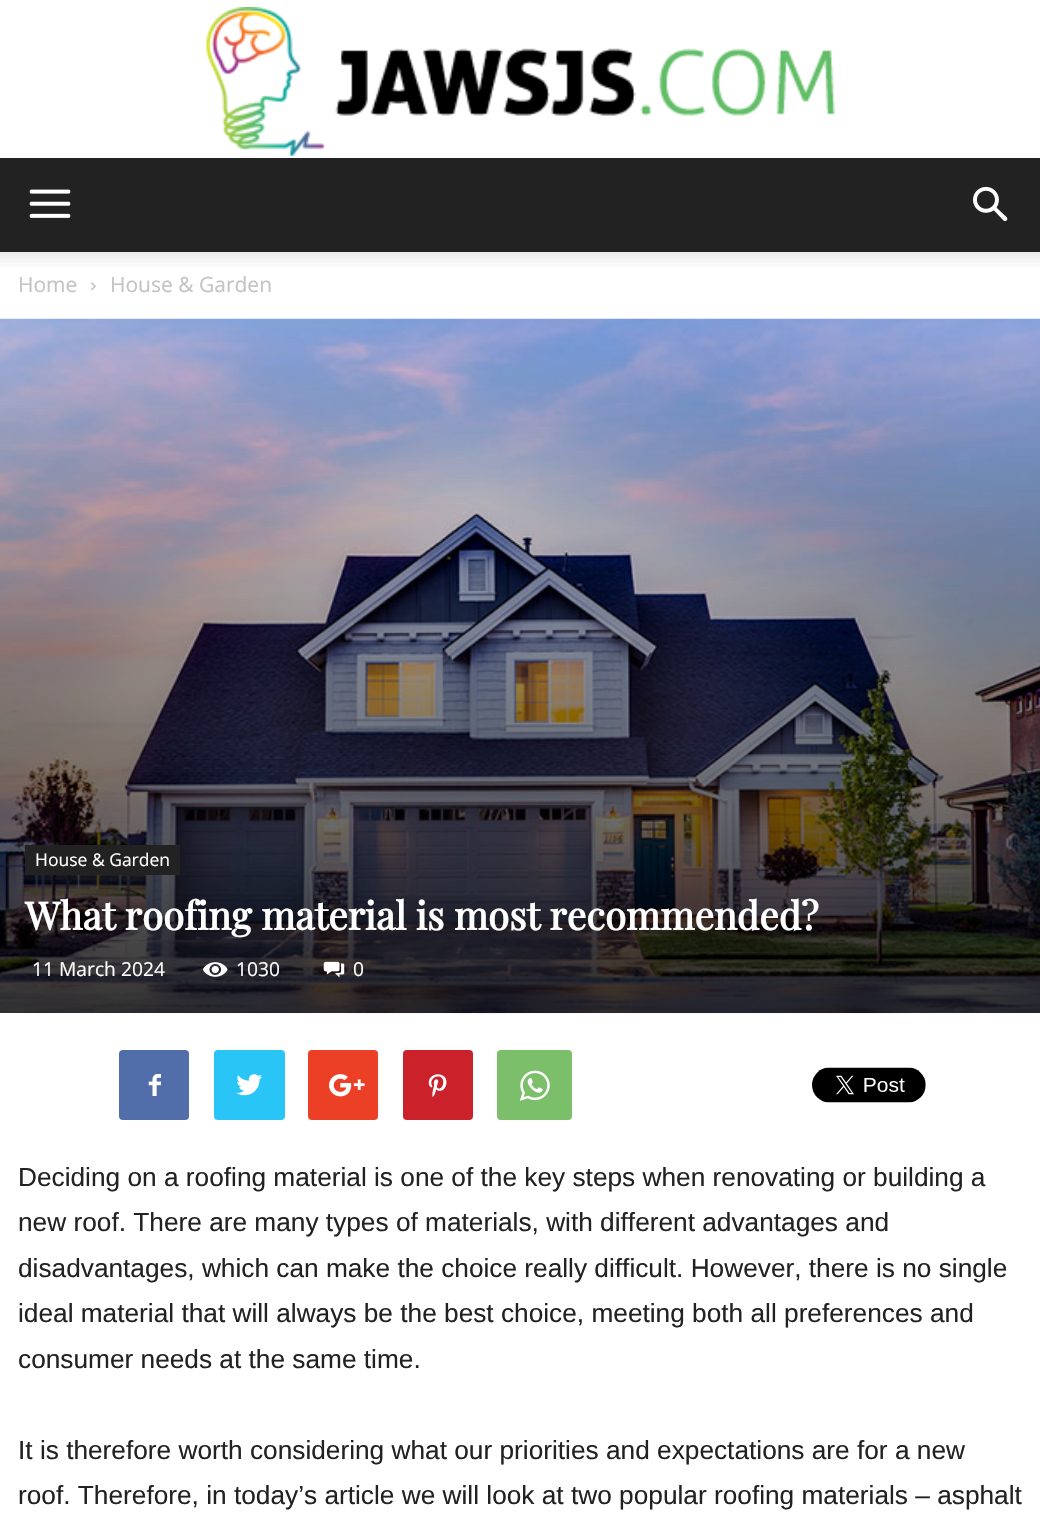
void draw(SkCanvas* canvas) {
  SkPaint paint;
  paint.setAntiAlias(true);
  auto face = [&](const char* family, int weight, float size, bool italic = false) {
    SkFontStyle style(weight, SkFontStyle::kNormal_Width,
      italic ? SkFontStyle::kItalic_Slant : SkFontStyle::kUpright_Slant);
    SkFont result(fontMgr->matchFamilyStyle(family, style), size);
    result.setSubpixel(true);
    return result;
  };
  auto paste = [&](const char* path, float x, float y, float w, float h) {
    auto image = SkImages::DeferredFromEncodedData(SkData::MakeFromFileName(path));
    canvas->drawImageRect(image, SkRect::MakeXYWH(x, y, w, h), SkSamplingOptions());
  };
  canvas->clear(0xffffffff);
  paste("img/1.png", 206, 7, 629, 149);
  paint.setColor(0xff222222);
  canvas->drawRect(SkRect::MakeXYWH(0, 158, 1040, 94), paint);
  paste("img/2.png", 29, 189, 42, 29);
  paste("img/3.png", 973, 186, 35, 36);
  paste("img/4.png", 0, 252, 1040, 15);
  paste("img/5.png", 91, 282, 5, 9);
  paste("img/6.png", 0, 318, 1040, 696);
  canvas->drawRect(SkRect::MakeXYWH(25, 845, 155, 30), paint);
  paste("img/7.png", 203, 962, 25, 15);
  paste("img/8.png", 323, 961, 22, 17);
  paint.setColor(0xff516eab);
  canvas->drawRoundRect(SkRect::MakeXYWH(119, 1050, 70, 70), 4, 4, paint);
  paste("img/9.png", 148, 1074, 13, 22);
  paint.setColor(0xff29c5f6);
  canvas->drawRoundRect(SkRect::MakeXYWH(214, 1050, 71, 70), 4, 4, paint);
  paste("img/10.png", 236, 1074, 26, 22);
  paint.setColor(0xffeb4026);
  canvas->drawRoundRect(SkRect::MakeXYWH(308, 1050, 70, 70), 4, 4, paint);
  paste("img/11.png", 329, 1074, 36, 23);
  paint.setColor(0xffca212a);
  canvas->drawRoundRect(SkRect::MakeXYWH(403, 1050, 70, 70), 4, 4, paint);
  paste("img/12.png", 428, 1074, 19, 23);
  paint.setColor(0xff7bbf6a);
  canvas->drawRoundRect(SkRect::MakeXYWH(497, 1050, 75, 70), 4, 4, paint);
  paste("img/13.png", 519, 1070, 31, 31);
  paste("img/14.png", 812, 1067, 114, 36);
  auto f0 = face("Open Sans", 400, 21);
  paint.setColor(0xffc3c3c3);
  canvas->drawString("Home", 18, 292, f0, paint);
  canvas->drawString("House & Garden", 110, 292, f0, paint);
  auto f1 = face("Open Sans", 400, 17.5f);
  paint.setColor(0xffffffff);
  canvas->drawString("House & Garden", 35, 866, f1, paint);
  auto f2 = face("Playfair Display", 700, 38.5f);
  canvas->drawString("What roofing material is most recommended?", 25, 930, f2, paint);
  auto f3 = face("Open Sans", 400, 19.25f);
  {
    const struct { const char* s; float x, y; } items[] = {
      {"11 March 2024", 32, 976},
      {"1030", 236, 976},
      {"0", 353, 976},
    };
    for (auto [s, x, y] : items) {
      canvas->drawString(s, x, y, f3, paint);
    }
  }
  auto f4 = face("Liberation Sans", 400, 26.25f);
  paint.setColor(0xff222222);
  {
    const struct { const char* s; float x, y; } items[] = {
      {"Deciding on a roofing material is one of the key steps when renovating or building a", 18, 1186},
      {"new roof. There are many types of materials, with different advantages and", 18, 1231},
      {"disadvantages, which can make the choice really difficult. However, there is no single", 18, 1277},
      {"ideal material that will always be the best choice, meeting both all preferences and", 18, 1322},
      {"consumer needs at the same time.", 18, 1368},
      {"It is therefore worth considering what our priorities and expectations are for a new", 18, 1459},
      {"roof. Therefore, in today’s article we will look at two popular roofing materials – asphalt", 18, 1504},
    };
    for (auto [s, x, y] : items) {
      canvas->drawString(s, x, y, f4, paint);
    }
  }
}
